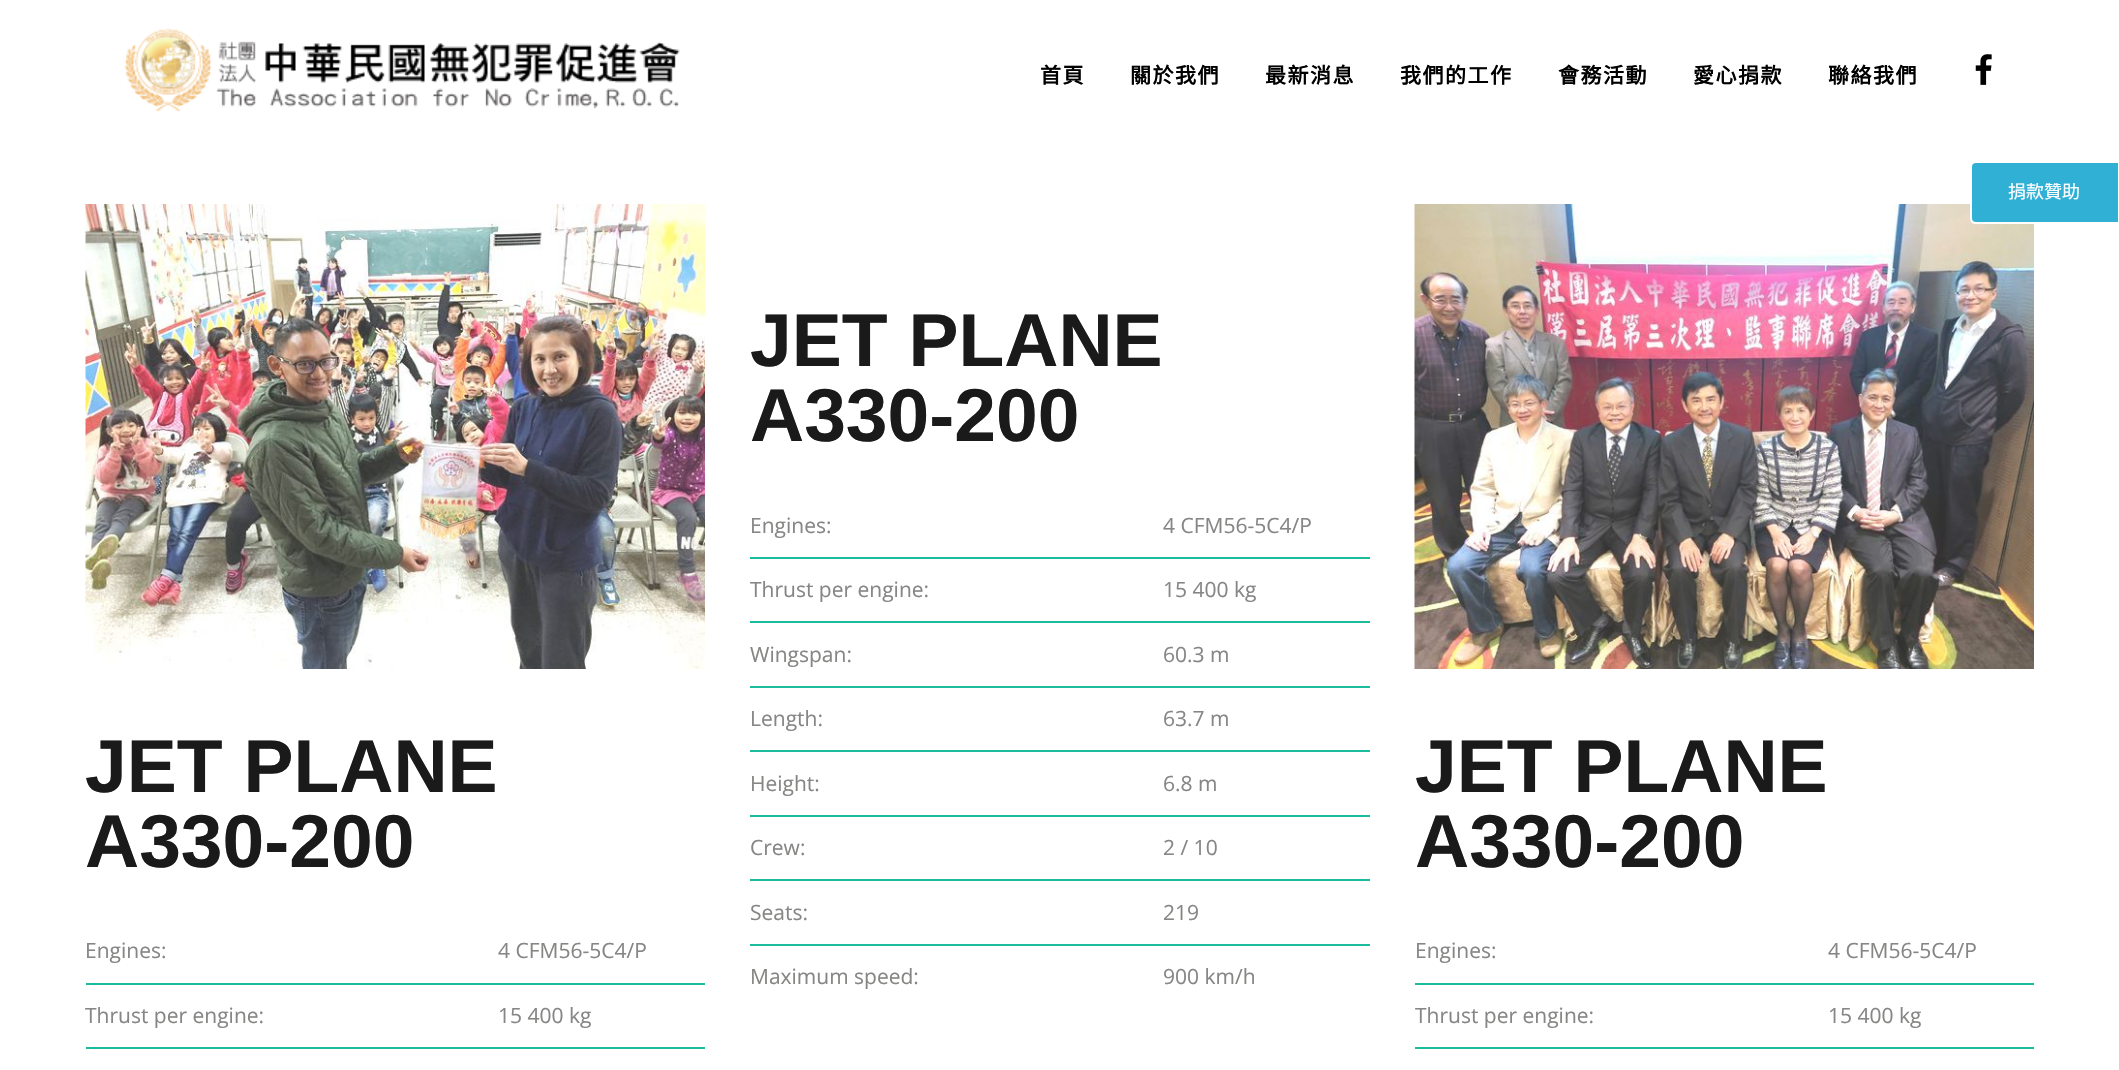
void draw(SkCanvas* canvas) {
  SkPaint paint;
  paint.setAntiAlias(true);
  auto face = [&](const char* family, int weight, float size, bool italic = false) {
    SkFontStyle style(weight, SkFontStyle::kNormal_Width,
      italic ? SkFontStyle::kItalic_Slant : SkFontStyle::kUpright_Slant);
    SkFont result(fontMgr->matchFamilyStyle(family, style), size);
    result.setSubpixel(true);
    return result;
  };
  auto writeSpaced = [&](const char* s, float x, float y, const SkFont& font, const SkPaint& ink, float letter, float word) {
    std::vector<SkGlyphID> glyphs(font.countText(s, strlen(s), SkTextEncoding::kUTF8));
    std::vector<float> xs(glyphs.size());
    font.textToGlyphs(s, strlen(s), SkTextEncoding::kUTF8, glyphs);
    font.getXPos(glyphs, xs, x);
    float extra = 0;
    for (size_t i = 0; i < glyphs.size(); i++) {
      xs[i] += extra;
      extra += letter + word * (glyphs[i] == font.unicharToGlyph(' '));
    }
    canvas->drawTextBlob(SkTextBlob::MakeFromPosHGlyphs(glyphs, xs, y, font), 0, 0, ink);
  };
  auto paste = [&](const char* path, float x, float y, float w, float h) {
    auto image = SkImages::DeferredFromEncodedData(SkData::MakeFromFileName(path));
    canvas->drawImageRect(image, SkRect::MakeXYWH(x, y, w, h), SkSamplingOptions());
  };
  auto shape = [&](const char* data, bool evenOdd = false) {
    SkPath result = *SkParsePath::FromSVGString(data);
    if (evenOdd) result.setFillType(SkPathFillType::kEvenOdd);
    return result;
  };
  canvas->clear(0xffffffff);
  paste("img/1.png", 124, 28, 556, 84);
  paste("img/2.png", 1975, 54, 17, 31);
  paste("img/3.png", 85, 204, 620, 465);
  {
    const struct { float x, y, w, h; SkColor color; } items[] = {
      {86, 983, 619, 2, 0xff1abc9c},
      {86, 1047, 619, 2, 0xff1abc9c},
      {750, 557, 620, 2, 0xff1abc9c},
      {750, 621, 620, 2, 0xff1abc9c},
      {750, 686, 620, 2, 0xff1abc9c},
      {750, 750, 620, 2, 0xff1abc9c},
      {750, 815, 620, 2, 0xff1abc9c},
      {750, 879, 620, 2, 0xff1abc9c},
      {750, 944, 620, 2, 0xff1abc9c},
    };
    for (auto [x, y, w, h, color] : items) {
      paint.setColor(color);
      canvas->drawRect(SkRect::MakeXYWH(x, y, w, h), paint);
    }
  }
  paste("img/4.png", 1414, 204, 620, 465);
  canvas->drawRect(SkRect::MakeXYWH(1415, 983, 619, 2), paint);
  canvas->drawRect(SkRect::MakeXYWH(1415, 1047, 619, 2), paint);
  paint.setColor(0xff31b0d5);
  canvas->drawPath(shape("M1976 162H2119V223H1976C1973 223 1971 221 1971 218V167C1971 164 1973 162 1976 162Z"), paint);
  paint.setStroke(true);
  paint.setStrokeWidth(2);
  paint.setColor(0xffffffff);
  canvas->drawPath(shape("M1976 162H2119V223H1976C1973 223 1971 221 1971 218V167C1971 164 1973 162 1976 162Z"), paint);
  auto f0 = face("Noto Sans CJK TC", 700, 21);
  paint.setStroke(false);
  paint.setColor(0xff000000);
  {
    const struct { const char* s; float x, y; } items[] = {
      {"首頁", 1040, 83},
      {"關於我們", 1130, 83},
      {"最新消息", 1265, 83},
      {"我們的工作", 1400, 83},
      {"會務活動", 1558, 83},
      {"愛心捐款", 1693, 83},
      {"聯絡我們", 1828, 83},
    };
    for (auto [s, x, y] : items) {
      writeSpaced(s, x, y, f0, paint, 1.5f, 0);
    }
  }
  auto f1 = face("Liberation Sans", 700, 75);
  paint.setColor(0xff1b1a1a);
  canvas->drawString("JET PLANE", 85, 792, f1, paint);
  canvas->drawString("A330-200", 85, 867, f1, paint);
  auto f2 = face("Open Sans", 400, 21);
  paint.setColor(0xff868685);
  {
    const struct { const char* s; float x, y; } items[] = {
      {"Engines:", 85, 958},
      {"4 CFM56-5C4/P", 498, 958},
      {"Thrust per engine:", 85, 1023},
      {"15 400 kg", 498, 1023},
    };
    for (auto [s, x, y] : items) {
      canvas->drawString(s, x, y, f2, paint);
    }
  }
  paint.setColor(0xff1b1a1a);
  canvas->drawString("JET PLANE", 750, 366, f1, paint);
  canvas->drawString("A330-200", 750, 441, f1, paint);
  paint.setColor(0xff868685);
  {
    const struct { const char* s; float x, y; } items[] = {
      {"Engines:", 750, 533},
      {"4 CFM56-5C4/P", 1163, 533},
      {"Thrust per engine:", 750, 597},
      {"15 400 kg", 1163, 597},
      {"Wingspan:", 750, 662},
      {"60.3 m", 1163, 662},
      {"Length:", 750, 726},
      {"63.7 m", 1163, 726},
      {"Height:", 750, 791},
      {"6.8 m", 1163, 791},
      {"Crew:", 750, 855},
      {"2 / 10", 1163, 855},
      {"Seats:", 750, 920},
      {"219", 1163, 920},
      {"Maximum speed:", 750, 984},
      {"900 km/h", 1163, 984},
    };
    for (auto [s, x, y] : items) {
      canvas->drawString(s, x, y, f2, paint);
    }
  }
  paint.setColor(0xff1b1a1a);
  canvas->drawString("JET PLANE", 1415, 792, f1, paint);
  canvas->drawString("A330-200", 1415, 867, f1, paint);
  paint.setColor(0xff868685);
  {
    const struct { const char* s; float x, y; } items[] = {
      {"Engines:", 1415, 958},
      {"4 CFM56-5C4/P", 1828, 958},
      {"Thrust per engine:", 1415, 1023},
      {"15 400 kg", 1828, 1023},
    };
    for (auto [s, x, y] : items) {
      canvas->drawString(s, x, y, f2, paint);
    }
  }
  auto f3 = face("Noto Sans CJK TC", 400, 18);
  paint.setColor(0xffffffff);
  canvas->drawString("捐款贊助", 2008, 198, f3, paint);
}
